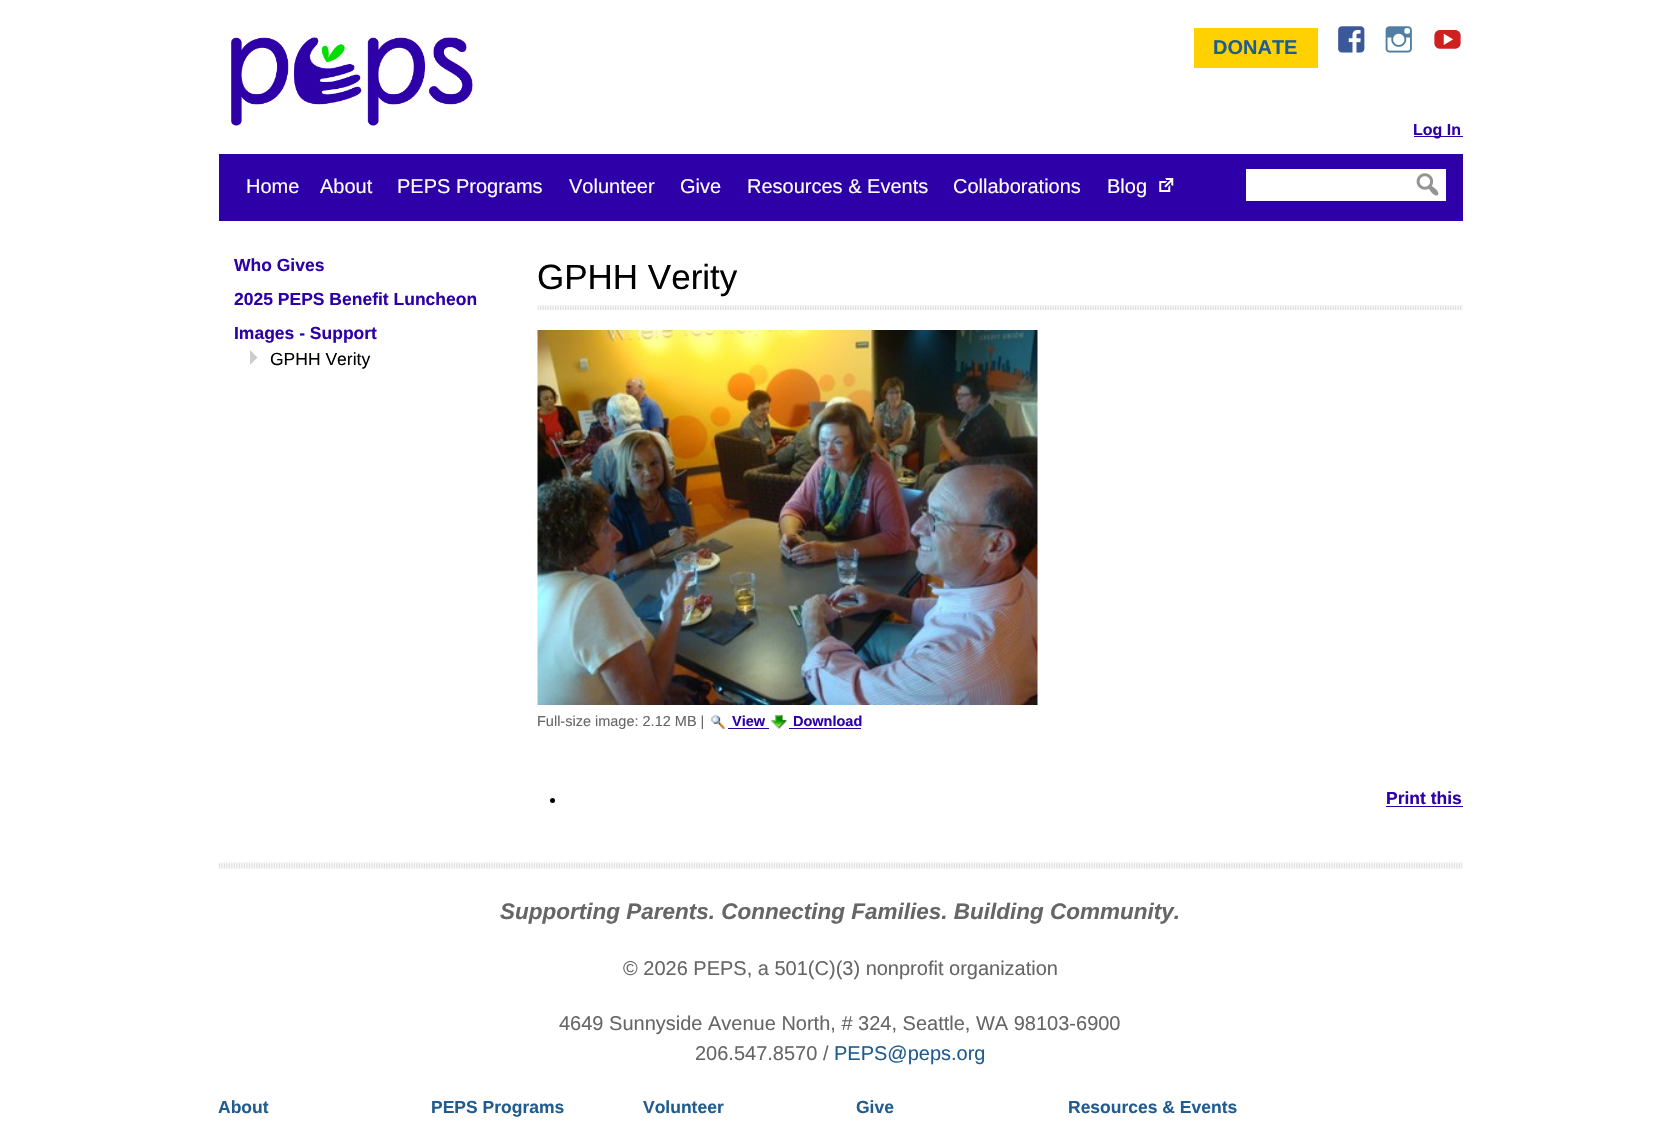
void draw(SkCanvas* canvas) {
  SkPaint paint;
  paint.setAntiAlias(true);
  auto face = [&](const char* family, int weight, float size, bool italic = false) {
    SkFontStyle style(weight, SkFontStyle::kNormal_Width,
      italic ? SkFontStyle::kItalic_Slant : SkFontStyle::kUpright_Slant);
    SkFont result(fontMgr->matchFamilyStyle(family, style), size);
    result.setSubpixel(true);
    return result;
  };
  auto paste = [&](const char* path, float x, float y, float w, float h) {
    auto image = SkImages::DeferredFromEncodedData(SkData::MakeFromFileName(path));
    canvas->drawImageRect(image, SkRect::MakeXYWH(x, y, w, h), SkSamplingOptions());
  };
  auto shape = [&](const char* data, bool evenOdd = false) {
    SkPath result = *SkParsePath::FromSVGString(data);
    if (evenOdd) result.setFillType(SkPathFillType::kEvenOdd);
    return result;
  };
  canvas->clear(0xffffffff);
  paste("img/1.png", 231, 37, 242, 89);
  paint.setColor(0xffffd100);
  canvas->drawRect(SkRect::MakeXYWH(1194, 28, 124, 40), paint);
  paste("img/2.png", 1338, 26, 27, 27);
  paste("img/3.png", 1385, 26, 27, 27);
  paste("img/4.png", 1434, 30, 27, 19);
  paint.setColor(0xff2d00a8);
  canvas->drawRect(SkRect::MakeXYWH(1414, 136, 49, 1), paint);
  canvas->drawRect(SkRect::MakeXYWH(219, 154, 1244, 67), paint);
  paste("img/5.png", 1159, 178, 15, 14);
  paint.setColor(0xffffffff);
  canvas->drawRect(SkRect::MakeXYWH(1246, 169, 200, 32), paint);
  paste("img/6.png", 1416, 173, 23, 23);
  paint.setColor(0xffcccccc);
  canvas->drawPath(shape("M250 365V350L257.5 357.5Z"), paint);
  paste("img/7.png", 537, 305, 926, 5);
  paste("img/8.png", 537, 330, 501, 375);
  paste("img/9.png", 711, 715, 15, 14);
  paint.setColor(0xff2d00a8);
  canvas->drawRect(SkRect::MakeXYWH(728, 728, 41, 1), paint);
  paste("img/10.png", 771, 714, 16, 15);
  canvas->drawRect(SkRect::MakeXYWH(789, 728, 72, 1), paint);
  paint.setColor(0xff000000);
  canvas->drawCircle(552.5f, 800.5f, 2.5f, paint);
  paint.setColor(0xff2d00a8);
  canvas->drawRect(SkRect::MakeXYWH(1386, 806, 77, 1), paint);
  paste("img/11.png", 219, 862, 1244, 7);
  auto f0 = face("Liberation Sans", 700, 20);
  paint.setColor(0xff205c90);
  canvas->drawString("DONATE", 1213, 54, f0, paint);
  auto f1 = face("Liberation Sans", 700, 16);
  paint.setColor(0xff2d00a8);
  canvas->drawString("Log In", 1413, 135, f1, paint);
  auto f2 = face("Liberation Sans", 400, 20);
  paint.setColor(0xffffffff);
  {
    const struct { const char* s; float x, y; } items[] = {
      {"Home", 246, 193},
      {"About", 320, 193},
      {"PEPS Programs", 397, 193},
      {"Volunteer", 569, 193},
      {"Give", 680, 193},
      {"Resources & Events", 747, 193},
      {"Collaborations", 953, 193},
      {"Blog", 1107, 193},
    };
    for (auto [s, x, y] : items) {
      canvas->drawString(s, x, y, f2, paint);
    }
  }
  auto f3 = face("Liberation Sans", 700, 17.5f);
  paint.setColor(0xff2d00a8);
  {
    const struct { const char* s; float x, y; } items[] = {
      {"Who Gives", 234, 271},
      {"2025 PEPS Benefit Luncheon", 234, 305},
      {"Images - Support", 234, 339},
    };
    for (auto [s, x, y] : items) {
      canvas->drawString(s, x, y, f3, paint);
    }
  }
  auto f4 = face("Liberation Sans", 400, 17.5f);
  paint.setColor(0xff000000);
  canvas->drawString("GPHH Verity", 270, 365, f4, paint);
  auto f5 = face("Liberation Sans", 400, 35);
  canvas->drawString("GPHH Verity", 537, 289, f5, paint);
  auto f6 = face("Liberation Sans", 400, 14.5f);
  paint.setColor(0xff666666);
  canvas->drawString("Full-size image: 2.12 MB |", 537, 726, f6, paint);
  auto f7 = face("Liberation Sans", 700, 14.5f);
  paint.setColor(0xff2d00a8);
  canvas->drawString("View", 732, 726, f7, paint);
  canvas->drawString("Download", 793, 726, f7, paint);
  canvas->drawString("Print this", 1386, 804, f3, paint);
  auto f8 = face("Liberation Sans", 700, 22.5f, true);
  paint.setColor(0xff666666);
  canvas->drawString("Supporting Parents. Connecting Families. Building Community.", 500, 919, f8, paint);
  {
    const struct { const char* s; float x, y; } items[] = {
      {"© 2026 PEPS, a 501(C)(3) nonprofit organization", 623, 975},
      {"4649 Sunnyside Avenue North, # 324, Seattle, WA 98103-6900", 559, 1030},
      {"206.547.8570 /", 695, 1060},
    };
    for (auto [s, x, y] : items) {
      canvas->drawString(s, x, y, f2, paint);
    }
  }
  paint.setColor(0xff205c90);
  canvas->drawString("PEPS@peps.org", 834, 1060, f2, paint);
  {
    const struct { const char* s; float x, y; } items[] = {
      {"About", 218, 1113},
      {"PEPS Programs", 431, 1113},
      {"Volunteer", 643, 1113},
      {"Give", 856, 1113},
      {"Resources & Events", 1068, 1113},
    };
    for (auto [s, x, y] : items) {
      canvas->drawString(s, x, y, f3, paint);
    }
  }
}
